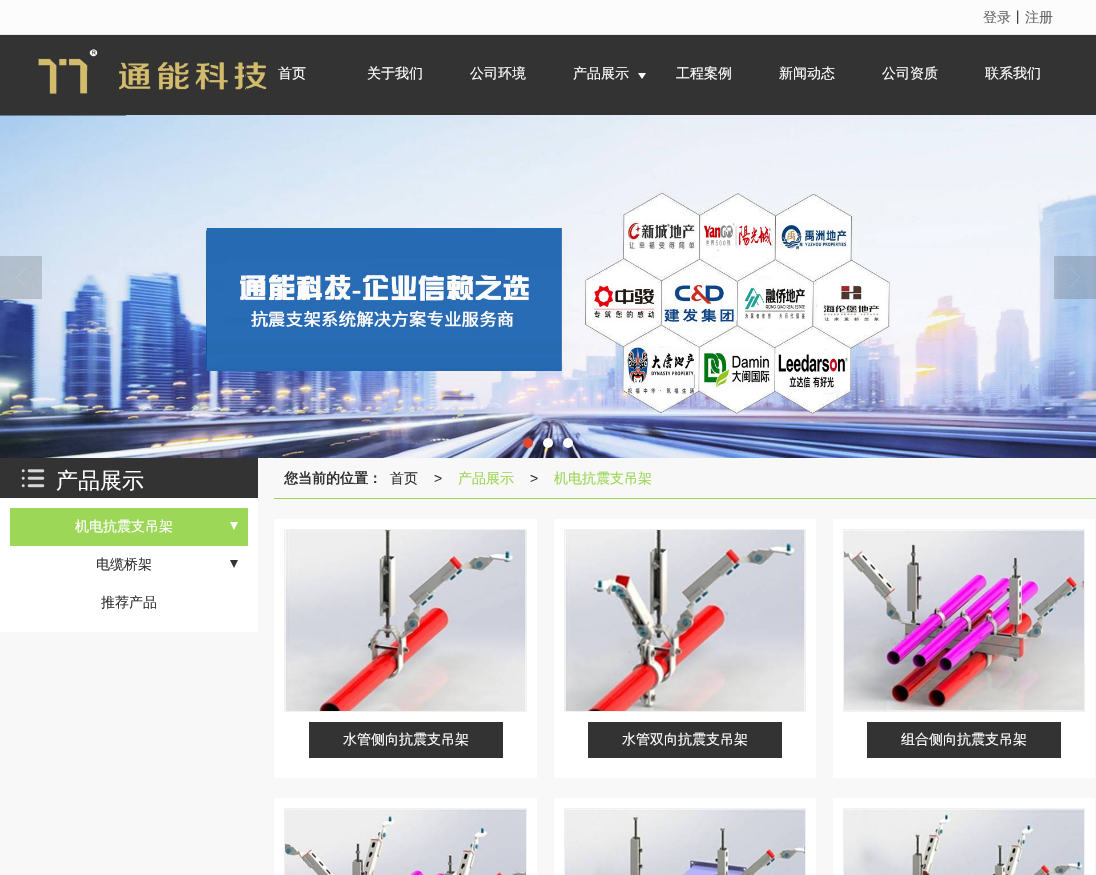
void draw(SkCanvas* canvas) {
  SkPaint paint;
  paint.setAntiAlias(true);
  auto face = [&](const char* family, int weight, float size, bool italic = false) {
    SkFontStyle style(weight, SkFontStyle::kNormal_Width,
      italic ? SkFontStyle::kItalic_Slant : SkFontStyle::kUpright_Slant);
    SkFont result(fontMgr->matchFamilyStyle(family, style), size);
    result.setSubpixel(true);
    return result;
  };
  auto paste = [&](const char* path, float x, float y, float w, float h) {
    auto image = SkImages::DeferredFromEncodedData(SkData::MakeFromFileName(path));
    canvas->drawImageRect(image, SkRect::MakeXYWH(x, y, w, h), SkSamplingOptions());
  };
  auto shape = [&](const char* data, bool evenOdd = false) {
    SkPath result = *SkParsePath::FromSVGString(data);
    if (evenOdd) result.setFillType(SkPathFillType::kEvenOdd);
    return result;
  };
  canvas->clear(0xfffcfcfc);
  paint.setColor(0xffe6e6e6);
  canvas->drawRect(SkRect::MakeXYWH(0, 34, 1096, 1), paint);
  paint.setColor(0xff333333);
  canvas->drawRect(SkRect::MakeXYWH(0, 35, 1096, 80), paint);
  paste("img/1.png", 38, 49, 229, 45);
  paint.setStroke(true);
  paint.setStrokeWidth(1);
  canvas->drawRoundRect(SkRect::MakeXYWH(244.5f, 58.5f, 94, 31), 4.5f, 4.5f, paint);
  paint.setStroke(false);
  paint.setColor(0xffffffff);
  canvas->drawPath(shape("M638 73H646L642 79Z"), paint);
  paste("img/2.png", 0, 115, 1096, 343);
  paint.setColor(0x66000000);
  canvas->drawRect(SkRect::MakeXYWH(0, 115, 126, 1), paint);
  paint.setColor(0x33393939);
  canvas->drawRect(SkRect::MakeXYWH(0, 256, 42, 43), paint);
  paste("img/3.png", 16, 268, 10, 19);
  canvas->drawRect(SkRect::MakeXYWH(1054, 256, 42, 43), paint);
  paste("img/4.png", 1070, 268, 10, 19);
  paint.setColor(0xffe1472f);
  canvas->drawCircle(528, 443, 5, paint);
  paint.setColor(0xffffffff);
  canvas->drawCircle(548, 443, 5, paint);
  canvas->drawCircle(568, 443, 5, paint);
  {
    const struct { float x, y, w, h; SkColor color; } items[] = {
      {0, 458, 1096, 417, 0xfff8f8f8},
      {0, 498, 258, 134, 0xffffffff},
      {0, 458, 258, 40, 0xff333333},
    };
    for (auto [x, y, w, h, color] : items) {
      paint.setColor(color);
      canvas->drawRect(SkRect::MakeXYWH(x, y, w, h), paint);
    }
  }
  paste("img/5.png", 21, 469, 24, 19);
  paint.setColor(0xff9cd757);
  canvas->drawRect(SkRect::MakeXYWH(10, 508, 238, 38), paint);
  paint.setColor(0xffffffff);
  canvas->drawPath(shape("M230 522H238L234 530Z"), paint);
  paint.setColor(0xff333333);
  canvas->drawPath(shape("M230 560H238L234 568Z"), paint);
  paint.setColor(0xff9cd757);
  canvas->drawRect(SkRect::MakeXYWH(274, 498, 822, 1), paint);
  paint.setColor(0xffffffff);
  canvas->drawRect(SkRect::MakeXYWH(274, 519, 263, 259), paint);
  paint.setStroke(true);
  paint.setColor(0xfff1f1f1);
  canvas->drawRect(SkRect::MakeXYWH(284.5f, 529.5f, 242, 182), paint);
  paste("img/6.png", 285, 530, 241, 181);
  paint.setStroke(false);
  paint.setColor(0xff333333);
  canvas->drawRect(SkRect::MakeXYWH(309, 722, 194, 36), paint);
  paint.setColor(0xffffffff);
  canvas->drawRect(SkRect::MakeXYWH(554, 519, 262, 259), paint);
  paint.setStroke(true);
  paint.setColor(0xfff1f1f1);
  canvas->drawRect(SkRect::MakeXYWH(564.5f, 529.5f, 241, 182), paint);
  paste("img/7.png", 565, 530, 240, 181);
  paint.setStroke(false);
  paint.setColor(0xff333333);
  canvas->drawRect(SkRect::MakeXYWH(588, 722, 194, 36), paint);
  paint.setColor(0xffffffff);
  canvas->drawRect(SkRect::MakeXYWH(833, 519, 262, 259), paint);
  paint.setStroke(true);
  paint.setColor(0xfff1f1f1);
  canvas->drawRect(SkRect::MakeXYWH(843.5f, 529.5f, 241, 182), paint);
  paste("img/8.png", 844, 530, 240, 181);
  paint.setStroke(false);
  paint.setColor(0xff333333);
  canvas->drawRect(SkRect::MakeXYWH(867, 722, 194, 36), paint);
  paint.setColor(0xffffffff);
  canvas->drawRect(SkRect::MakeXYWH(274, 798, 263, 77), paint);
  paint.setStroke(true);
  paint.setColor(0xfff1f1f1);
  canvas->drawRect(SkRect::MakeXYWH(284.5f, 808.5f, 242, 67), paint);
  paste("img/9.png", 285, 809, 241, 66);
  paint.setStroke(false);
  paint.setColor(0xffffffff);
  canvas->drawRect(SkRect::MakeXYWH(554, 798, 262, 77), paint);
  paint.setStroke(true);
  paint.setColor(0xfff1f1f1);
  canvas->drawRect(SkRect::MakeXYWH(564.5f, 808.5f, 241, 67), paint);
  paste("img/10.png", 565, 809, 240, 66);
  paint.setStroke(false);
  paint.setColor(0xffffffff);
  canvas->drawRect(SkRect::MakeXYWH(833, 798, 262, 77), paint);
  paint.setStroke(true);
  paint.setColor(0xfff1f1f1);
  canvas->drawRect(SkRect::MakeXYWH(843.5f, 808.5f, 241, 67), paint);
  paste("img/11.png", 844, 809, 240, 66);
  auto f0 = face("WenQuanYi Zen Hei", 500, 14);
  paint.setStroke(false);
  paint.setColor(0xff666666);
  canvas->drawString("登录", 983, 22, f0, paint);
  paint.setColor(0xff333333);
  canvas->drawString("丨", 1011, 22, f0, paint);
  paint.setColor(0xff666666);
  canvas->drawString("注册", 1025, 22, f0, paint);
  paint.setColor(0xffffffff);
  {
    const struct { const char* s; float x, y; } items[] = {
      {"首页", 278, 78},
      {"关于我们", 367, 78},
      {"公司环境", 470, 78},
      {"产品展示", 573, 78},
      {"工程案例", 676, 78},
      {"新闻动态", 779, 78},
      {"公司资质", 882, 78},
      {"联系我们", 985, 78},
    };
    for (auto [s, x, y] : items) {
      canvas->drawString(s, x, y, f0, paint);
    }
  }
  auto f1 = face("WenQuanYi Zen Hei", 500, 22);
  canvas->drawString("产品展示", 56, 488, f1, paint);
  canvas->drawString("机电抗震支吊架", 75, 531, f0, paint);
  paint.setColor(0xff333333);
  canvas->drawString("电缆桥架", 96, 569, f0, paint);
  canvas->drawString("推荐产品", 101, 607, f0, paint);
  auto f2 = face("WenQuanYi Zen Hei", 700, 14);
  canvas->drawString("您当前的位置：", 284, 483, f2, paint);
  canvas->drawString("首页", 390, 483, f0, paint);
  auto f3 = face("Liberation Sans", 400, 14);
  canvas->drawString(">", 434, 483, f3, paint);
  paint.setColor(0xff9cd757);
  canvas->drawString("产品展示", 458, 483, f0, paint);
  paint.setColor(0xff333333);
  canvas->drawString(">", 530, 483, f3, paint);
  paint.setColor(0xff9cd757);
  canvas->drawString("机电抗震支吊架", 554, 483, f0, paint);
  paint.setColor(0xffffffff);
  {
    const struct { const char* s; float x, y; } items[] = {
      {"水管侧向抗震支吊架", 343, 744},
      {"水管双向抗震支吊架", 622, 744},
      {"组合侧向抗震支吊架", 901, 744},
    };
    for (auto [s, x, y] : items) {
      canvas->drawString(s, x, y, f0, paint);
    }
  }
}
